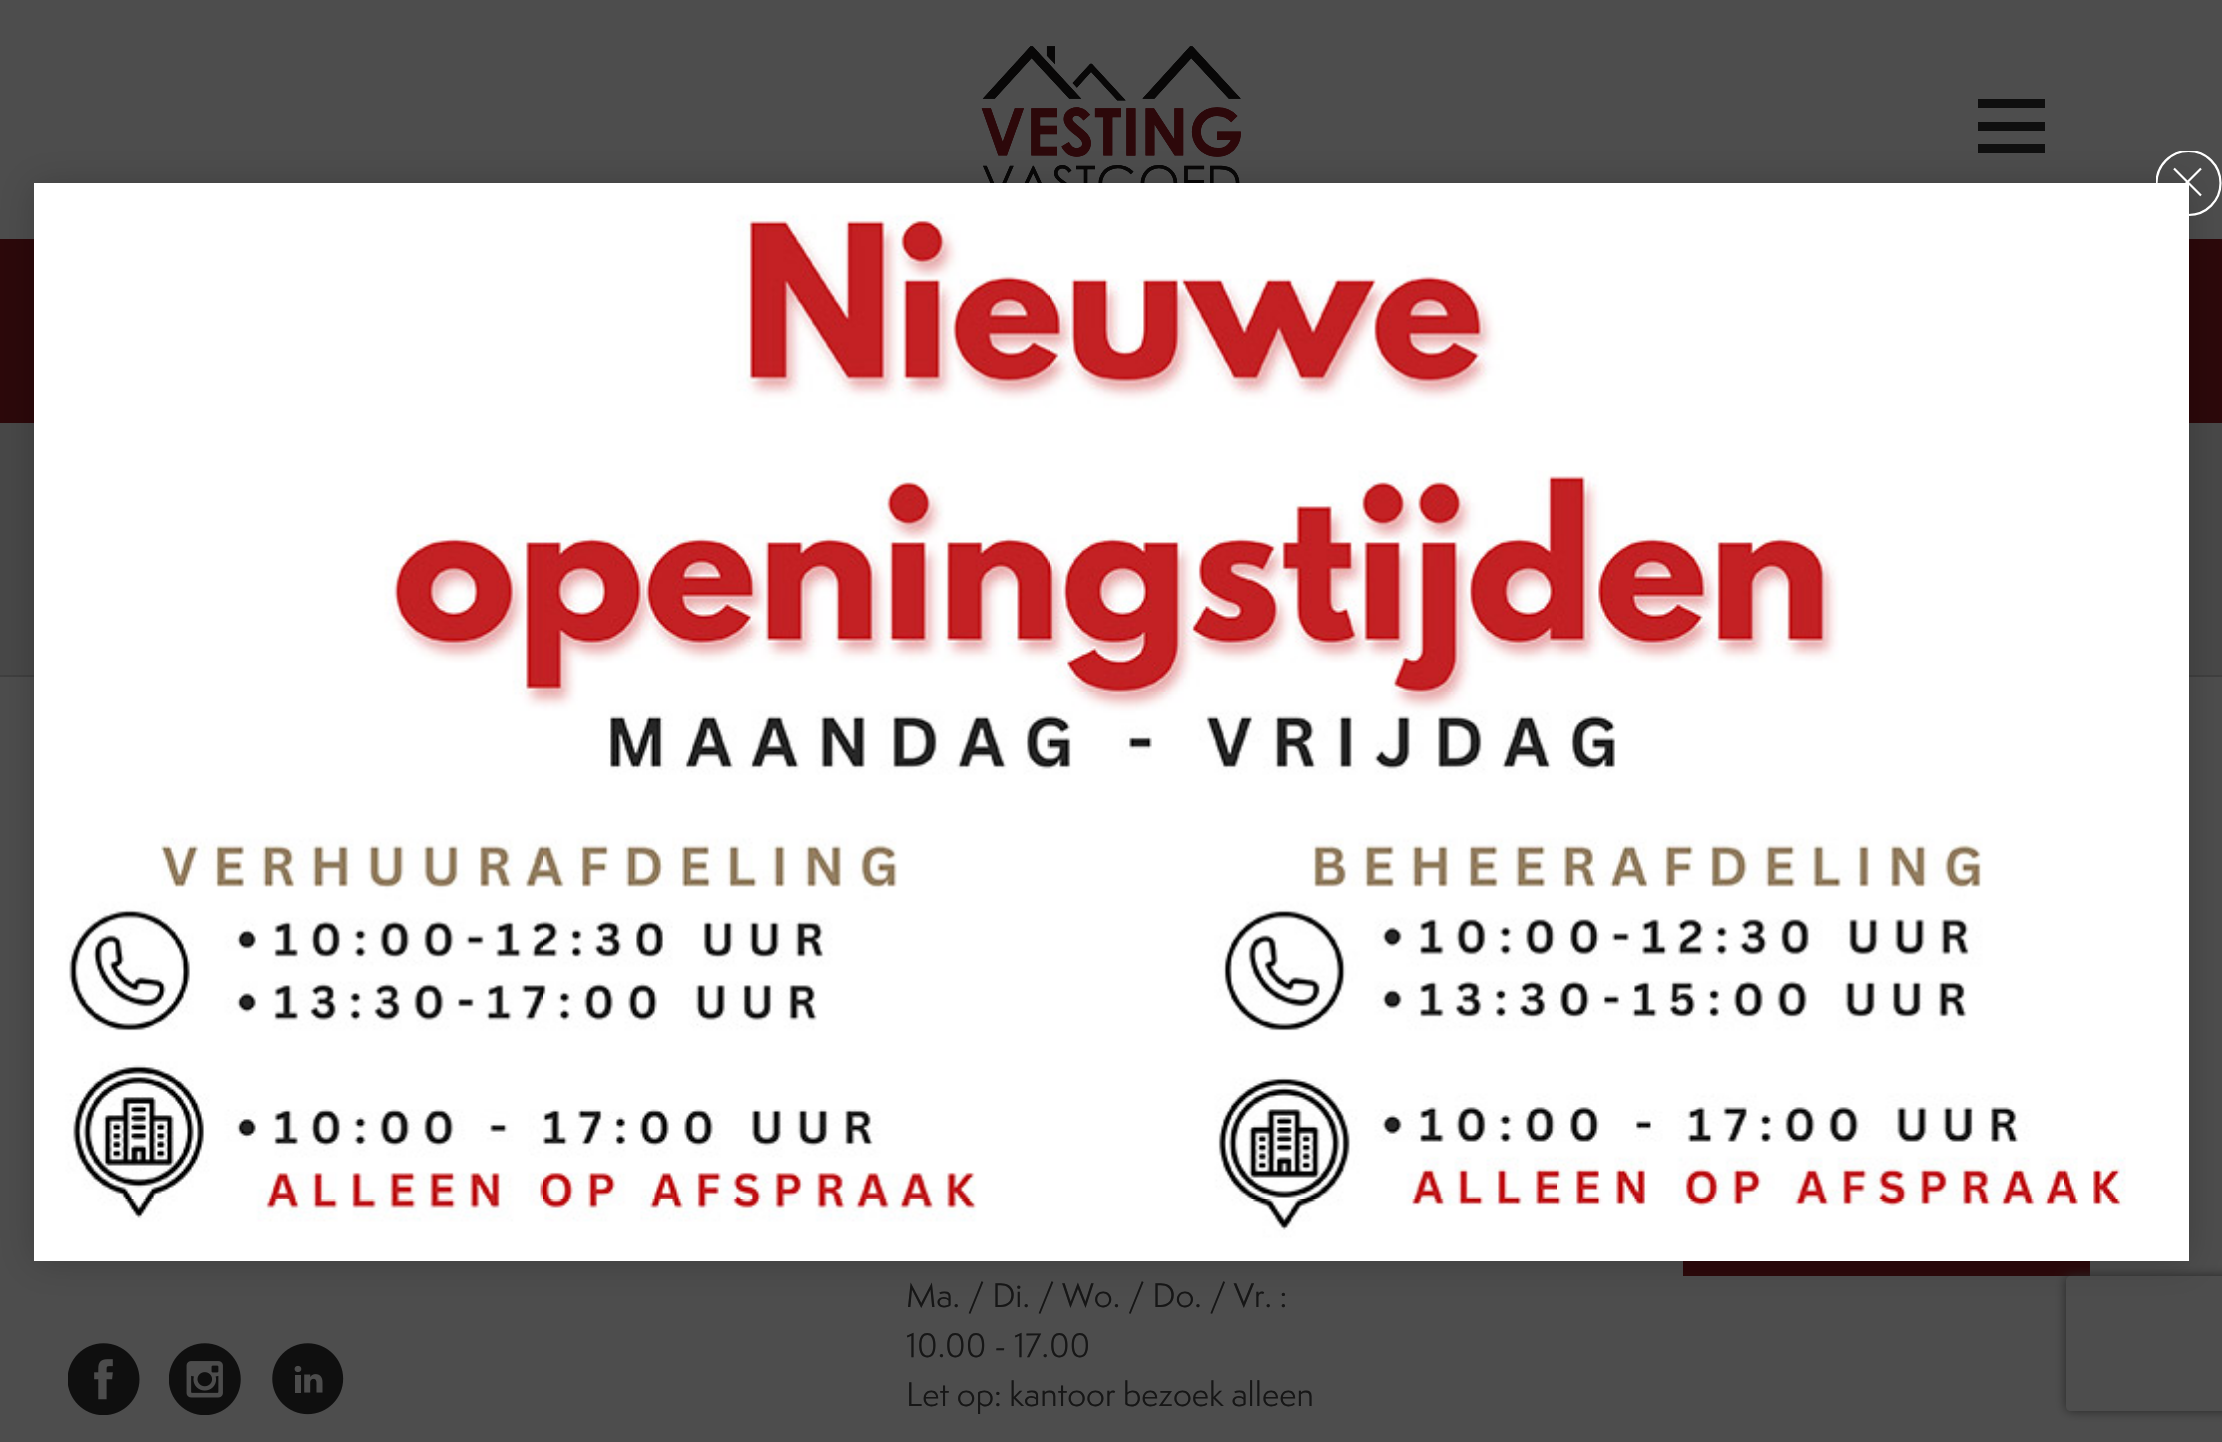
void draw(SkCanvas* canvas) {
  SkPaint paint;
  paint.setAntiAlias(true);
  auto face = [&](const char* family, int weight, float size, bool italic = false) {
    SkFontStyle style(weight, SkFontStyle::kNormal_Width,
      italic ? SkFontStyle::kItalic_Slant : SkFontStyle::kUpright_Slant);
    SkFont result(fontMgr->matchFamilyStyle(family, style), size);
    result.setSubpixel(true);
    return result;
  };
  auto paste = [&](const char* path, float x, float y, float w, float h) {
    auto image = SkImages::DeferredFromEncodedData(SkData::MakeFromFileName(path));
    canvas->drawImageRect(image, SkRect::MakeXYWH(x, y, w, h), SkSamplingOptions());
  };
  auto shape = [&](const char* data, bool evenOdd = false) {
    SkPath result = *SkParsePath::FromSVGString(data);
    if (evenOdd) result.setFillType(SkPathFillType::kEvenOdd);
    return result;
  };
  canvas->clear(0xff4d4d4d);
  paste("img/1.png", 981, 46, 260, 137);
  {
    const struct { float x, y, w, h; SkColor color; } items[] = {
      {1978, 99, 67, 9, 0xff0f0f0f},
      {1978, 122, 67, 9, 0xff0f0f0f},
      {1978, 144, 67, 9, 0xff0f0f0f},
      {0, 239, 2222, 184, 0xff2c080a},
      {0, 423, 2222, 252, 0xff484848},
      {0, 675, 2222, 2, 0xff3f3f3f},
      {1683, 1261, 407, 15, 0xff2c080a},
    };
    for (auto [x, y, w, h, color] : items) {
      paint.setColor(color);
      canvas->drawRect(SkRect::MakeXYWH(x, y, w, h), paint);
    }
  }
  paint.setColor(0x33000000);
  paint.setMaskFilter(SkMaskFilter::MakeBlur(kNormal_SkBlurStyle, 17));
  canvas->drawRect(SkRect::MakeXYWH(34, 185, 2155, 1077), paint);
  paint.setMaskFilter(nullptr);
  canvas->save();
  canvas->clipPath(shape("M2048 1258H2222V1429H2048ZM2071 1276H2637C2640 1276 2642 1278 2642 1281V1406C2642 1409 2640 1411 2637 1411H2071C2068 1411 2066 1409 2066 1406V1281C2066 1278 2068 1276 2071 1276Z", true), true);
  paint.setColor(0xff262626);
  paint.setMaskFilter(SkMaskFilter::MakeBlur(kNormal_SkBlurStyle, 5.5f));
  canvas->drawRoundRect(SkRect::MakeXYWH(2066, 1276, 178, 135), 5, 5, paint);
  paint.setMaskFilter(nullptr);
  canvas->restore();
  paste("img/2.png", 34, 183, 2155, 1078);
  canvas->save();
  canvas->clipRect(SkRect::MakeXYWH(2156, 151, 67, 67));
  paint.setStroke(true);
  paint.setStrokeWidth(2.2f);
  paint.setColor(0xffffffff);
  canvas->drawCircle(2188.5f, 183, 32, paint);
  canvas->restore();
  canvas->drawPath(shape("M2174 195.5L2201 168.5M2201 195.5L2174 168.5"), paint);
  paste("img/3.png", 68, 1343, 72, 72);
  paste("img/4.png", 169, 1343, 72, 72);
  paste("img/5.png", 272, 1343, 72, 72);
  auto f0 = face("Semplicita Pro", 400, 31.5f);
  paint.setStroke(false);
  paint.setColor(0xff161616);
  {
    const struct { const char* s; float x, y; } items[] = {
      {"Ma. / Di. / Wo. / Do. / Vr. :", 906, 1307},
      {"10.00 - 17.00", 906, 1357},
      {"Let op: kantoor bezoek alleen", 906, 1406},
    };
    for (auto [s, x, y] : items) {
      canvas->drawString(s, x, y, f0, paint);
    }
  }
}
